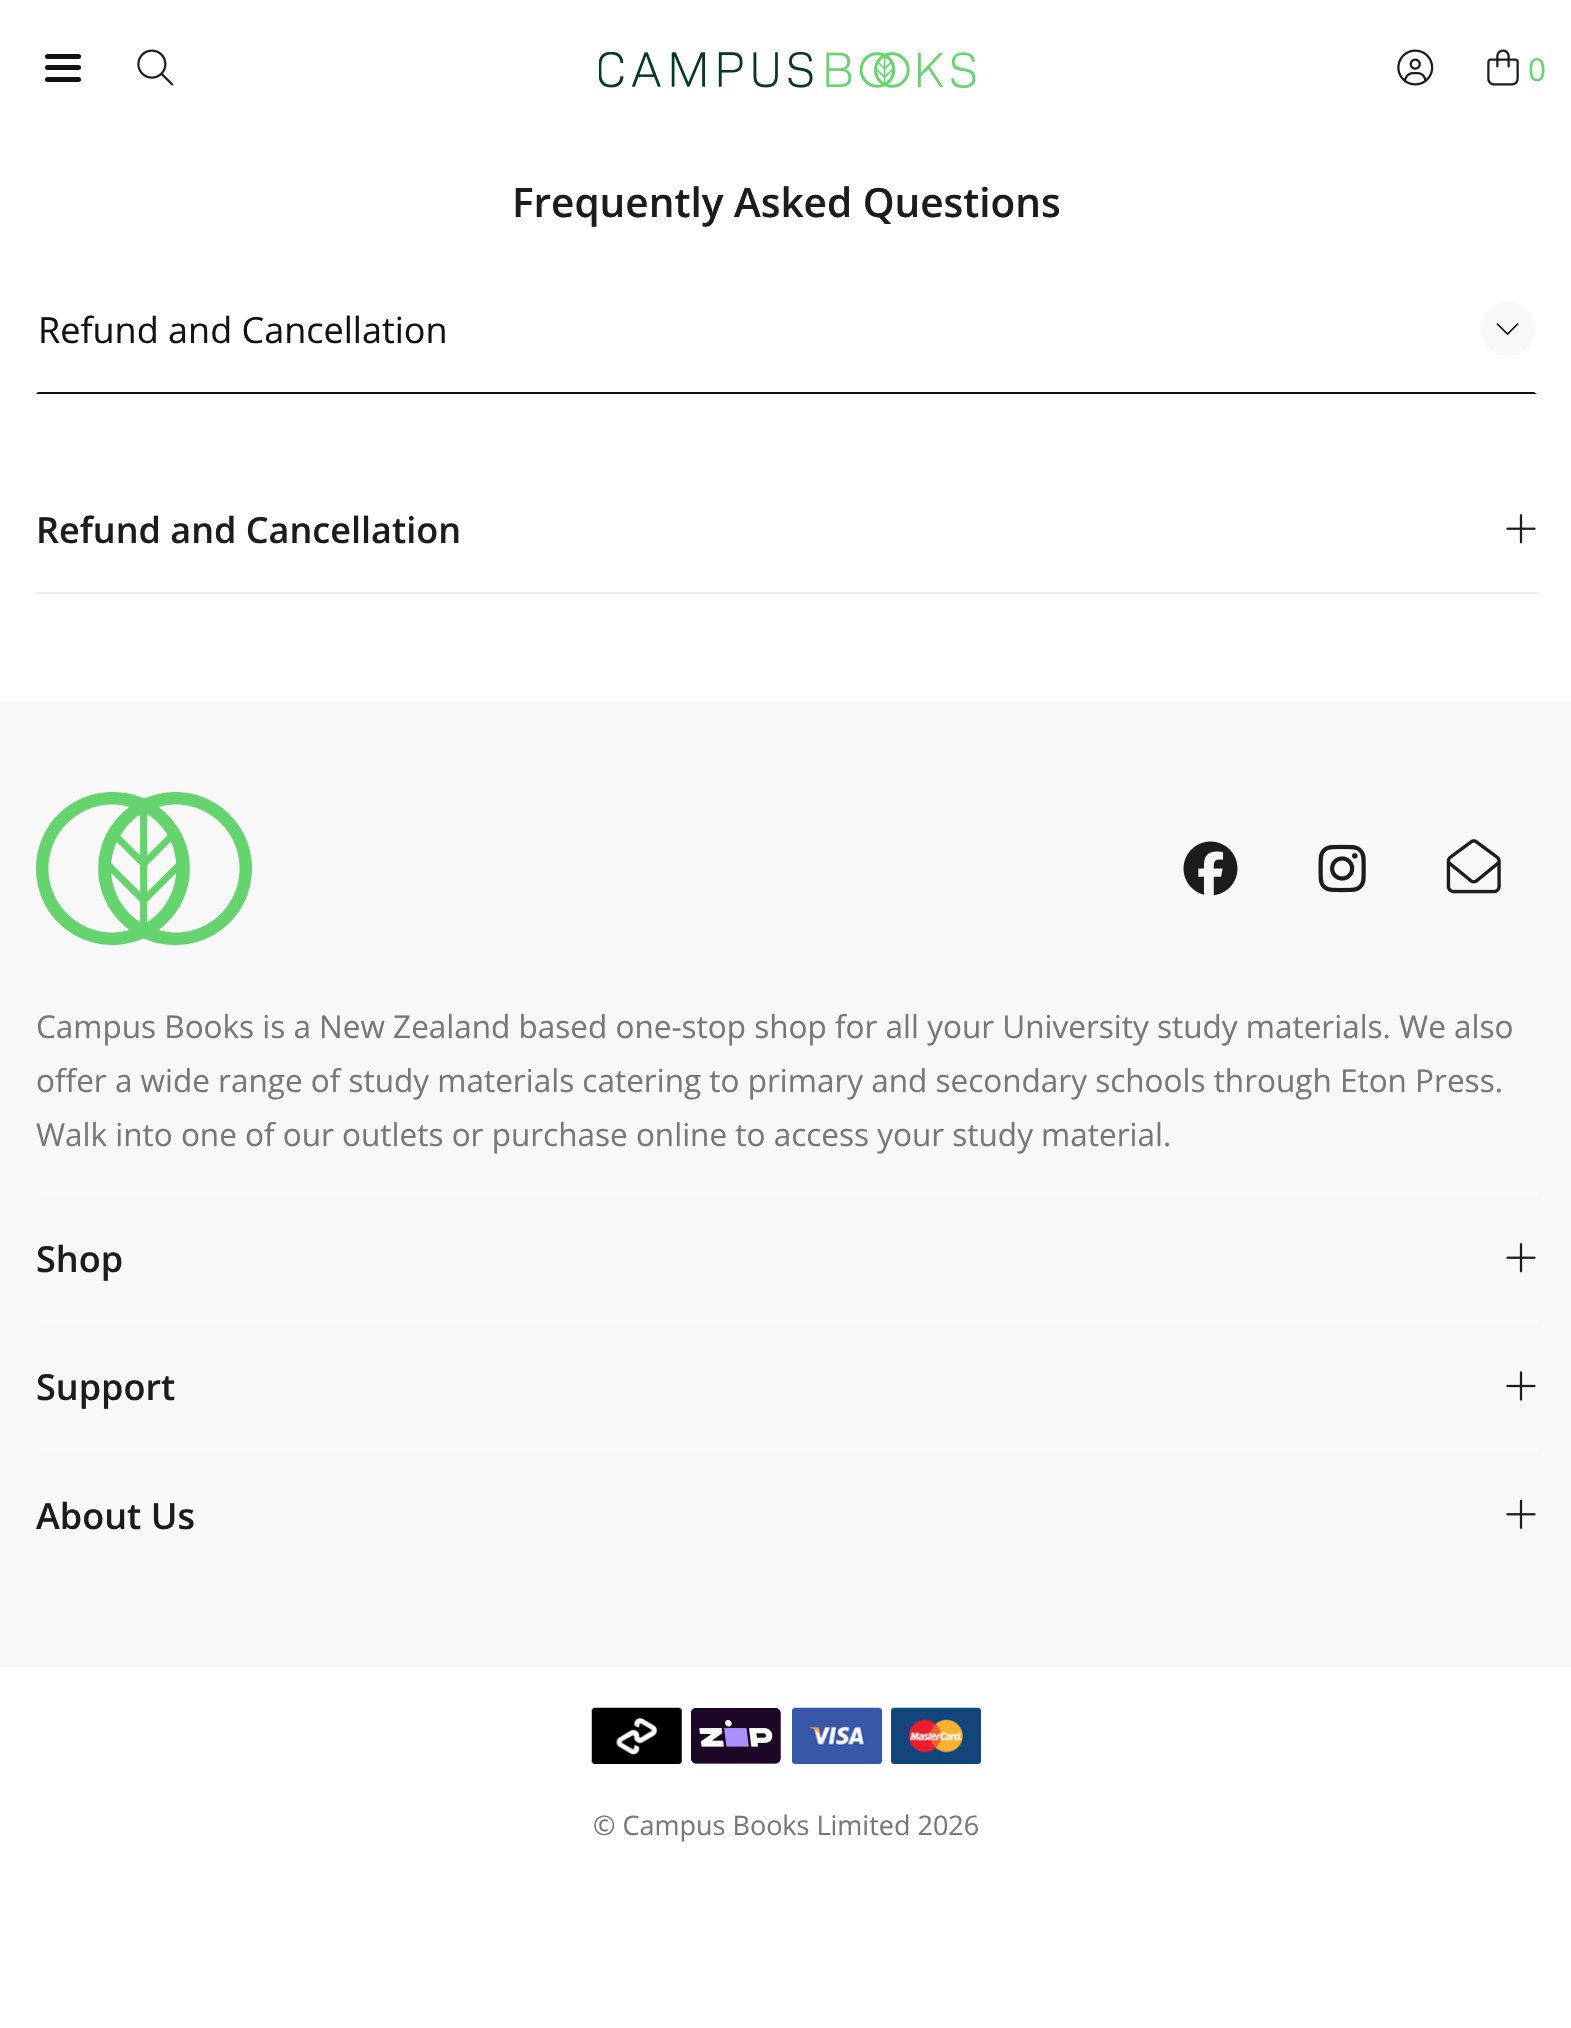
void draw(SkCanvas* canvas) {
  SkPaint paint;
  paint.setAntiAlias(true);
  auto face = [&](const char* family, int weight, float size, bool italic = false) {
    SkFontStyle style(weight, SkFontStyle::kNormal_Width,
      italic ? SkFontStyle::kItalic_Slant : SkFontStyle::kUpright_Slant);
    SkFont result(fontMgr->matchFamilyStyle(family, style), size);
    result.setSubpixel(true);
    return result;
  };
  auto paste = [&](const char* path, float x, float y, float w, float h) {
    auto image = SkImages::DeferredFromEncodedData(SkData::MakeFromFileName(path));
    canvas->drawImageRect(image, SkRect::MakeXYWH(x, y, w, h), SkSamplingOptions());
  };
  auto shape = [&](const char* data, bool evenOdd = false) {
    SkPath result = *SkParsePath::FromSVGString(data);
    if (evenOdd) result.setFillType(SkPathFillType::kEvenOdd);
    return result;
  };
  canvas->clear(0xffffffff);
  paint.setColor(0xff121212);
  canvas->drawRoundRect(SkRect::MakeXYWH(45, 65, 36, 5), 2.5f, 2.5f, paint);
  canvas->drawRoundRect(SkRect::MakeXYWH(45, 54, 36, 5), 2.5f, 2.5f, paint);
  canvas->drawRoundRect(SkRect::MakeXYWH(45, 77, 36, 5), 2.5f, 2.5f, paint);
  paste("img/1.png", 137, 49, 37, 37);
  paste("img/2.png", 599, 52, 377, 36);
  paste("img/3.png", 1397, 49, 37, 37);
  paste("img/4.png", 1487, 49, 32, 37);
  canvas->drawPath(shape("M1537 394H36L38 392H1534Z"), paint);
  paint.setColor(0xfff8f8f8);
  canvas->drawCircle(1508, 329, 27, paint);
  paste("img/5.png", 1496, 323, 23, 12);
  paint.setColor(0xffececec);
  canvas->drawRect(SkRect::MakeXYWH(36, 592, 1501, 2), paint);
  paste("img/6.png", 1506, 514, 30, 30);
  paint.setColor(0xfff8f8f8);
  canvas->drawRect(SkRect::MakeXYWH(0, 702, 1571, 965), paint);
  paste("img/7.png", 36, 792, 216, 153);
  paste("img/8.png", 1183, 841, 55, 55);
  paste("img/9.png", 1318, 844, 48, 49);
  paste("img/10.png", 1446, 839, 55, 55);
  paint.setColor(0xffffffff);
  canvas->drawRect(SkRect::MakeXYWH(36, 1193, 1501, 2), paint);
  paste("img/11.png", 1506, 1243, 30, 30);
  canvas->drawRect(SkRect::MakeXYWH(36, 1321, 1501, 2), paint);
  paste("img/12.png", 1506, 1371, 30, 30);
  canvas->drawRect(SkRect::MakeXYWH(36, 1449, 1501, 2), paint);
  paste("img/13.png", 1506, 1499, 30, 30);
  paste("img/14.png", 591, 1707, 91, 57);
  paste("img/15.png", 691, 1708, 90, 56);
  paste("img/16.png", 792, 1707, 90, 57);
  paste("img/17.png", 891, 1707, 90, 57);
  auto f0 = face("Open Sans", 400, 31.5f);
  paint.setColor(0xff65d46e);
  canvas->drawString("0", 1528, 81, f0, paint);
  auto f1 = face("Open Sans", 600, 40.5f);
  paint.setColor(0xff1c1c1c);
  canvas->drawString("Frequently Asked Questions", 512, 217, f1, paint);
  auto f2 = face("Open Sans", 400, 36);
  paint.setColor(0xff121212);
  canvas->drawString("Refund and Cancellation", 38, 343, f2, paint);
  auto f3 = face("Open Sans", 600, 36);
  paint.setColor(0xff1c1c1c);
  canvas->drawString("Refund and Cancellation", 36, 543, f3, paint);
  paint.setColor(0xff777777);
  {
    const struct { const char* s; float x, y; } items[] = {
      {"Campus Books is a New Zealand based one-stop shop for all your University study materials. We also", 36, 1038},
      {"offer a wide range of study materials catering to primary and secondary schools through Eton Press.", 36, 1092},
      {"Walk into one of our outlets or purchase online to access your study material.", 36, 1146},
    };
    for (auto [s, x, y] : items) {
      canvas->drawString(s, x, y, f0, paint);
    }
  }
  paint.setColor(0xff1c1c1c);
  {
    const struct { const char* s; float x, y; } items[] = {
      {"Shop", 36, 1272},
      {"Support", 36, 1400},
      {"About Us", 36, 1529},
    };
    for (auto [s, x, y] : items) {
      canvas->drawString(s, x, y, f3, paint);
    }
  }
  auto f4 = face("Open Sans", 400, 27);
  paint.setColor(0xff777777);
  canvas->drawString("© Campus Books Limited 2026", 593, 1835, f4, paint);
}
